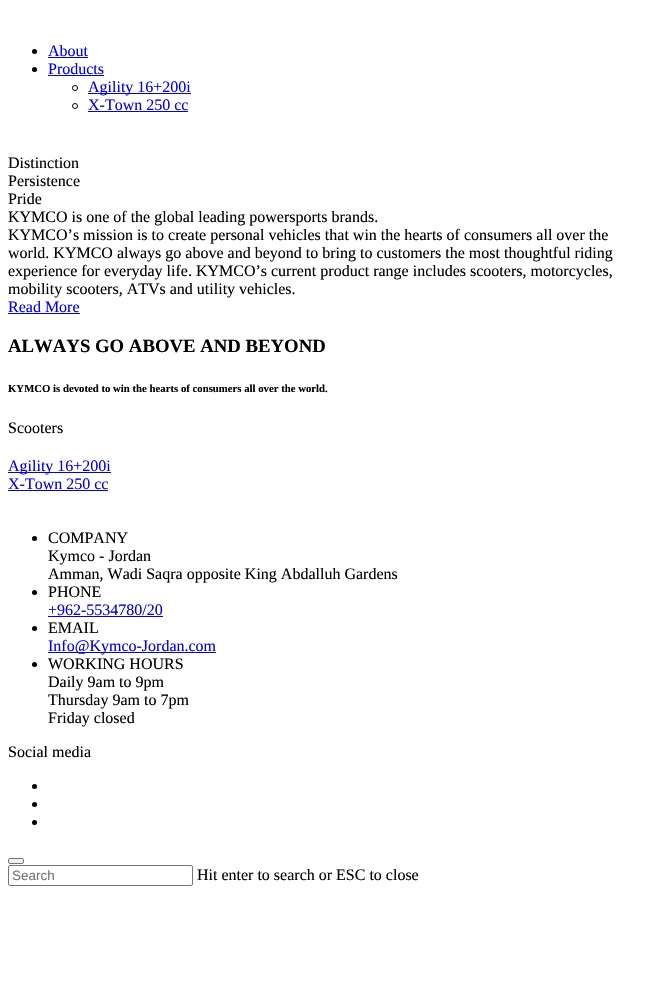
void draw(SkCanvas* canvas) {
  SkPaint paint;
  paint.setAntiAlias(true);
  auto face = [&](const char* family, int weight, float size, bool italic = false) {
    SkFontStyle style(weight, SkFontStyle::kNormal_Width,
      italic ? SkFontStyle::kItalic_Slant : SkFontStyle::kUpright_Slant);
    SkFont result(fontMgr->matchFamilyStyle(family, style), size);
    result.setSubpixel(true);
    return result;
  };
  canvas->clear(0xffffffff);
  paint.setColor(0xff000000);
  canvas->drawCircle(34.5f, 51.5f, 2.5f, paint);
  paint.setColor(0xff0000ee);
  canvas->drawRect(SkRect::MakeXYWH(48, 57, 40, 1), paint);
  paint.setColor(0xff000000);
  canvas->drawCircle(34.5f, 69.5f, 2.5f, paint);
  paint.setColor(0xff0000ee);
  canvas->drawRect(SkRect::MakeXYWH(48, 75, 56, 1), paint);
  paint.setStroke(true);
  paint.setStrokeWidth(1);
  paint.setColor(0xff000000);
  canvas->drawCircle(75, 88, 2.5f, paint);
  paint.setStroke(false);
  paint.setColor(0xff0000ee);
  canvas->drawRect(SkRect::MakeXYWH(88, 93, 103, 1), paint);
  paint.setStroke(true);
  paint.setColor(0xff000000);
  canvas->drawCircle(75, 106, 2.5f, paint);
  paint.setStroke(false);
  {
    const struct { float x, y, w, h; SkColor color; } items[] = {
      {88, 111, 100, 1, 0xff0000ee},
      {8, 313, 72, 1, 0xff0000ee},
      {8, 472, 103, 1, 0xff0000ee},
      {8, 490, 100, 1, 0xff0000ee},
    };
    for (auto [x, y, w, h, color] : items) {
      paint.setColor(color);
      canvas->drawRect(SkRect::MakeXYWH(x, y, w, h), paint);
    }
  }
  paint.setColor(0xff000000);
  canvas->drawCircle(34.5f, 538.5f, 2.5f, paint);
  canvas->drawCircle(34.5f, 592.5f, 2.5f, paint);
  paint.setColor(0xff0000ee);
  canvas->drawRect(SkRect::MakeXYWH(48, 616, 115, 1), paint);
  paint.setColor(0xff000000);
  canvas->drawCircle(34.5f, 628.5f, 2.5f, paint);
  paint.setColor(0xff0000ee);
  canvas->drawRect(SkRect::MakeXYWH(48, 652, 168, 1), paint);
  paint.setColor(0xff000000);
  canvas->drawCircle(34.5f, 664.5f, 2.5f, paint);
  canvas->drawCircle(34.5f, 786.5f, 2.5f, paint);
  canvas->drawCircle(34.5f, 804.5f, 2.5f, paint);
  canvas->drawCircle(34.5f, 822.5f, 2.5f, paint);
  paint.setColor(0xffefefef);
  canvas->drawRoundRect(SkRect::MakeXYWH(8.5f, 858.5f, 15, 5), 1.5f, 1.5f, paint);
  paint.setStroke(true);
  paint.setColor(0xff767676);
  canvas->drawRoundRect(SkRect::MakeXYWH(8.5f, 858.5f, 15, 5), 1.5f, 1.5f, paint);
  canvas->drawRoundRect(SkRect::MakeXYWH(8.5f, 865.5f, 184, 20), 1.5f, 1.5f, paint);
  auto f0 = face("Liberation Serif", 400, 16);
  paint.setStroke(false);
  paint.setColor(0xff0000ee);
  {
    const struct { const char* s; float x, y; } items[] = {
      {"About", 48, 56},
      {"Products", 48, 74},
      {"Agility 16+200i", 88, 92},
      {"X-Town 250 cc", 88, 110},
    };
    for (auto [s, x, y] : items) {
      canvas->drawString(s, x, y, f0, paint);
    }
  }
  paint.setColor(0xff000000);
  {
    const struct { const char* s; float x, y; } items[] = {
      {"Distinction", 8, 168},
      {"Persistence", 8, 186},
      {"Pride", 8, 204},
      {"KYMCO is one of the global leading powersports brands.", 8, 222},
      {"KYMCO’s mission is to create personal vehicles that win the hearts of consumers all over the", 8, 240},
      {"world. KYMCO always go above and beyond to bring to customers the most thoughtful riding", 8, 258},
      {"experience for everyday life. KYMCO’s current product range includes scooters, motorcycles,", 8, 276},
      {"mobility scooters, ATVs and utility vehicles.", 8, 294},
    };
    for (auto [s, x, y] : items) {
      canvas->drawString(s, x, y, f0, paint);
    }
  }
  paint.setColor(0xff0000ee);
  canvas->drawString("Read More", 8, 312, f0, paint);
  auto f1 = face("Liberation Serif", 700, 18.75f);
  paint.setColor(0xff000000);
  canvas->drawString("ALWAYS GO ABOVE AND BEYOND", 8, 352, f1, paint);
  auto f2 = face("Liberation Serif", 700, 10.75f);
  canvas->drawString("KYMCO is devoted to win the hearts of consumers all over the world.", 8, 392, f2, paint);
  canvas->drawString("Scooters", 8, 433, f0, paint);
  paint.setColor(0xff0000ee);
  canvas->drawString("Agility 16+200i", 8, 471, f0, paint);
  canvas->drawString("X-Town 250 cc", 8, 489, f0, paint);
  paint.setColor(0xff000000);
  {
    const struct { const char* s; float x, y; } items[] = {
      {"COMPANY", 48, 543},
      {"Kymco - Jordan", 48, 561},
      {"Amman, Wadi Saqra opposite King Abdalluh Gardens", 48, 579},
      {"PHONE", 48, 597},
    };
    for (auto [s, x, y] : items) {
      canvas->drawString(s, x, y, f0, paint);
    }
  }
  paint.setColor(0xff0000ee);
  canvas->drawString("+962-5534780/20", 48, 615, f0, paint);
  paint.setColor(0xff000000);
  canvas->drawString("EMAIL", 48, 633, f0, paint);
  paint.setColor(0xff0000ee);
  canvas->drawString("Info@Kymco-Jordan.com", 48, 651, f0, paint);
  paint.setColor(0xff000000);
  {
    const struct { const char* s; float x, y; } items[] = {
      {"WORKING HOURS", 48, 669},
      {"Daily 9am to 9pm", 48, 687},
      {"Thursday 9am to 7pm", 48, 705},
      {"Friday closed", 48, 723},
      {"Social media", 8, 757},
    };
    for (auto [s, x, y] : items) {
      canvas->drawString(s, x, y, f0, paint);
    }
  }
  auto f3 = face("Liberation Sans", 400, 13.5f);
  paint.setColor(0xff757575);
  canvas->drawString("Search", 12, 880, f3, paint);
  paint.setColor(0xff000000);
  canvas->drawString("Hit enter to search or ESC to close", 197, 880, f0, paint);
}
